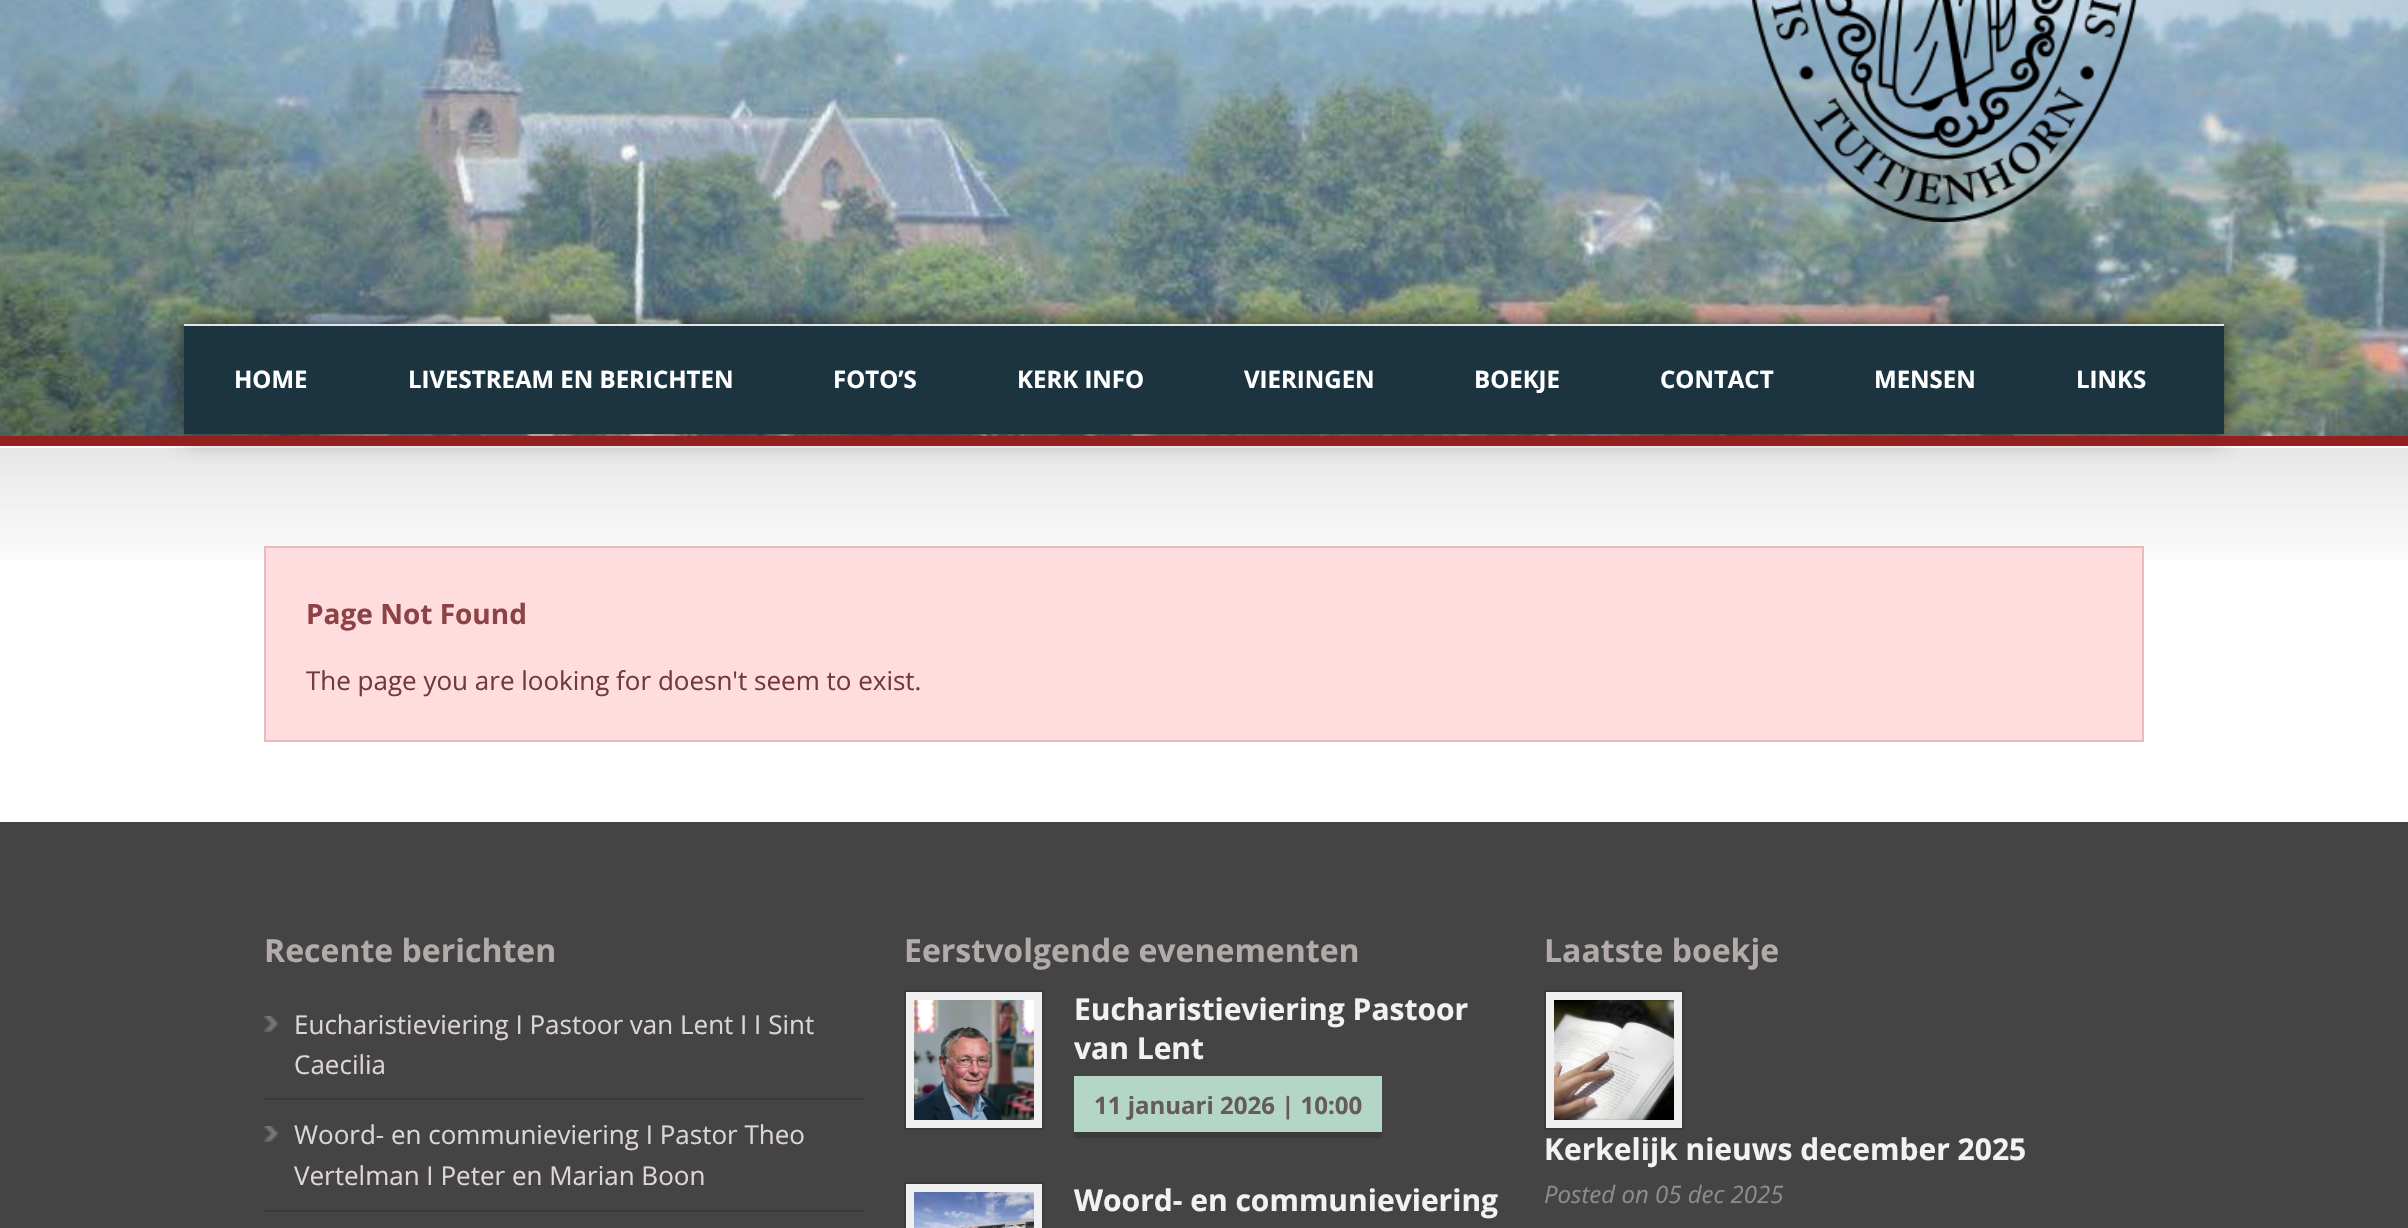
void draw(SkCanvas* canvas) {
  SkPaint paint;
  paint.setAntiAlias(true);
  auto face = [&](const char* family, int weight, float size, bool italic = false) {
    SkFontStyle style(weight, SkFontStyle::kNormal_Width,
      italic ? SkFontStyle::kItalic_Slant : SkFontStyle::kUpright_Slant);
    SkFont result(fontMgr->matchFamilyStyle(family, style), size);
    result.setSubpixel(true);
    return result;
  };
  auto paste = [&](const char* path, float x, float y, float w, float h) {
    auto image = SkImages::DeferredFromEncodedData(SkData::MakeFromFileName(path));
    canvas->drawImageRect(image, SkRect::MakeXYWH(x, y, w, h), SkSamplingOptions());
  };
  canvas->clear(0xffffffff);
  paste("img/1.png", 0, 0, 2408, 436);
  paste("img/2.png", 1751, 0, 386, 222);
  paste("img/3.png", 0, 448, 2408, 112);
  paint.setColor(0xb3000000);
  paint.setMaskFilter(SkMaskFilter::MakeBlur(kNormal_SkBlurStyle, 12));
  canvas->drawRect(SkRect::MakeXYWH(184, 324, 2040, 110), paint);
  paint.setMaskFilter(nullptr);
  {
    const struct { float x, y, w, h; SkColor color; } items[] = {
      {184, 326, 2040, 108, 0xff1b3440},
      {184, 324, 2040, 2, 0xffe5e5e5},
      {0, 436, 2408, 10, 0xff931f1f},
    };
    for (auto [x, y, w, h, color] : items) {
      paint.setColor(color);
      canvas->drawRect(SkRect::MakeXYWH(x, y, w, h), paint);
    }
  }
  paint.setColor(0xffffdcdd);
  canvas->drawRect(SkRect::MakeXYWH(265, 547, 1878, 194), paint);
  paint.setStroke(true);
  paint.setStrokeWidth(2);
  paint.setColor(0xffe9b9bb);
  canvas->drawRect(SkRect::MakeXYWH(265, 547, 1878, 194), paint);
  paint.setStroke(false);
  paint.setColor(0xff444444);
  canvas->drawRect(SkRect::MakeXYWH(0, 822, 2408, 406), paint);
  paste("img/4.png", 264, 1016, 15, 16);
  paint.setColor(0xff3b3b3b);
  canvas->drawRect(SkRect::MakeXYWH(264, 1098, 600, 2), paint);
  paste("img/4.png", 264, 1126, 15, 16);
  canvas->drawRect(SkRect::MakeXYWH(264, 1210, 600, 2), paint);
  paint.setColor(0xfff0f0f0);
  canvas->drawRect(SkRect::MakeXYWH(905, 991, 138, 138), paint);
  paint.setStroke(true);
  paint.setColor(0xff3b3b3b);
  canvas->drawRect(SkRect::MakeXYWH(905, 991, 138, 138), paint);
  paste("img/5.png", 914, 1000, 120, 120);
  paint.setStroke(false);
  paint.setColor(0xffb4d6c6);
  canvas->drawRect(SkRect::MakeXYWH(1074, 1076, 308, 56), paint);
  paint.setColor(0xff3b3b3b);
  canvas->drawRect(SkRect::MakeXYWH(1074, 1132, 308, 6), paint);
  paint.setColor(0xfff0f0f0);
  canvas->drawRect(SkRect::MakeXYWH(905, 1183, 138, 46), paint);
  paint.setStroke(true);
  paint.setColor(0xff3b3b3b);
  canvas->drawRect(SkRect::MakeXYWH(905, 1183, 138, 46), paint);
  paste("img/6.png", 914, 1192, 120, 36);
  paint.setStroke(false);
  paint.setColor(0xfff0f0f0);
  canvas->drawRect(SkRect::MakeXYWH(1545, 991, 138, 138), paint);
  paint.setStroke(true);
  paint.setColor(0xff3b3b3b);
  canvas->drawRect(SkRect::MakeXYWH(1545, 991, 138, 138), paint);
  paste("img/7.png", 1554, 1000, 120, 120);
  auto f0 = face("Open Sans", 700, 24);
  paint.setStroke(false);
  paint.setColor(0xffffffff);
  {
    const struct { const char* s; float x, y; } items[] = {
      {"HOME", 234, 388},
      {"LIVESTREAM EN BERICHTEN", 408, 388},
      {"FOTO’S", 833, 388},
      {"KERK INFO", 1017, 388},
      {"VIERINGEN", 1244, 388},
      {"BOEKJE", 1474, 388},
      {"CONTACT", 1660, 388},
      {"MENSEN", 1874, 388},
      {"LINKS", 2076, 388},
    };
    for (auto [s, x, y] : items) {
      canvas->drawString(s, x, y, f0, paint);
    }
  }
  auto f1 = face("Open Sans", 700, 28);
  paint.setColor(0xff8d4345);
  canvas->drawString("Page Not Found", 306, 624, f1, paint);
  auto f2 = face("Open Sans", 400, 26);
  paint.setColor(0xff713a3c);
  canvas->drawString("The page you are looking for doesn't seem to exist.", 306, 690, f2, paint);
  auto f3 = face("Open Sans", 700, 32);
  paint.setColor(0xffb3aaaa);
  canvas->drawString("Recente berichten", 264, 962, f3, paint);
  paint.setColor(0xffded5d5);
  {
    const struct { const char* s; float x, y; } items[] = {
      {"Eucharistieviering I Pastoor van Lent I I Sint", 294, 1034},
      {"Caecilia", 294, 1074},
      {"Woord- en communieviering I Pastor Theo", 294, 1144},
      {"Vertelman I Peter en Marian Boon", 294, 1185},
    };
    for (auto [s, x, y] : items) {
      canvas->drawString(s, x, y, f2, paint);
    }
  }
  paint.setColor(0xffb3aaaa);
  canvas->drawString("Eerstvolgende evenementen", 904, 962, f3, paint);
  auto f4 = face("Open Sans", 700, 30);
  paint.setColor(0xfff2f2f2);
  canvas->drawString("Eucharistieviering Pastoor", 1074, 1020, f4, paint);
  canvas->drawString("van Lent", 1074, 1059, f4, paint);
  paint.setColor(0xff665b5b);
  canvas->drawString("11 januari 2026 | 10:00", 1094, 1114, f0, paint);
  paint.setColor(0xfff2f2f2);
  canvas->drawString("Woord- en communieviering", 1074, 1211, f4, paint);
  paint.setColor(0xffb3aaaa);
  canvas->drawString("Laatste boekje", 1544, 962, f3, paint);
  paint.setColor(0xfff2f2f2);
  canvas->drawString("Kerkelijk nieuws december 2025", 1544, 1160, f4, paint);
  auto f5 = face("Open Sans", 400, 24, true);
  paint.setColor(0xff8c8c8c);
  canvas->drawString("Posted on 05 dec 2025", 1544, 1203, f5, paint);
}
